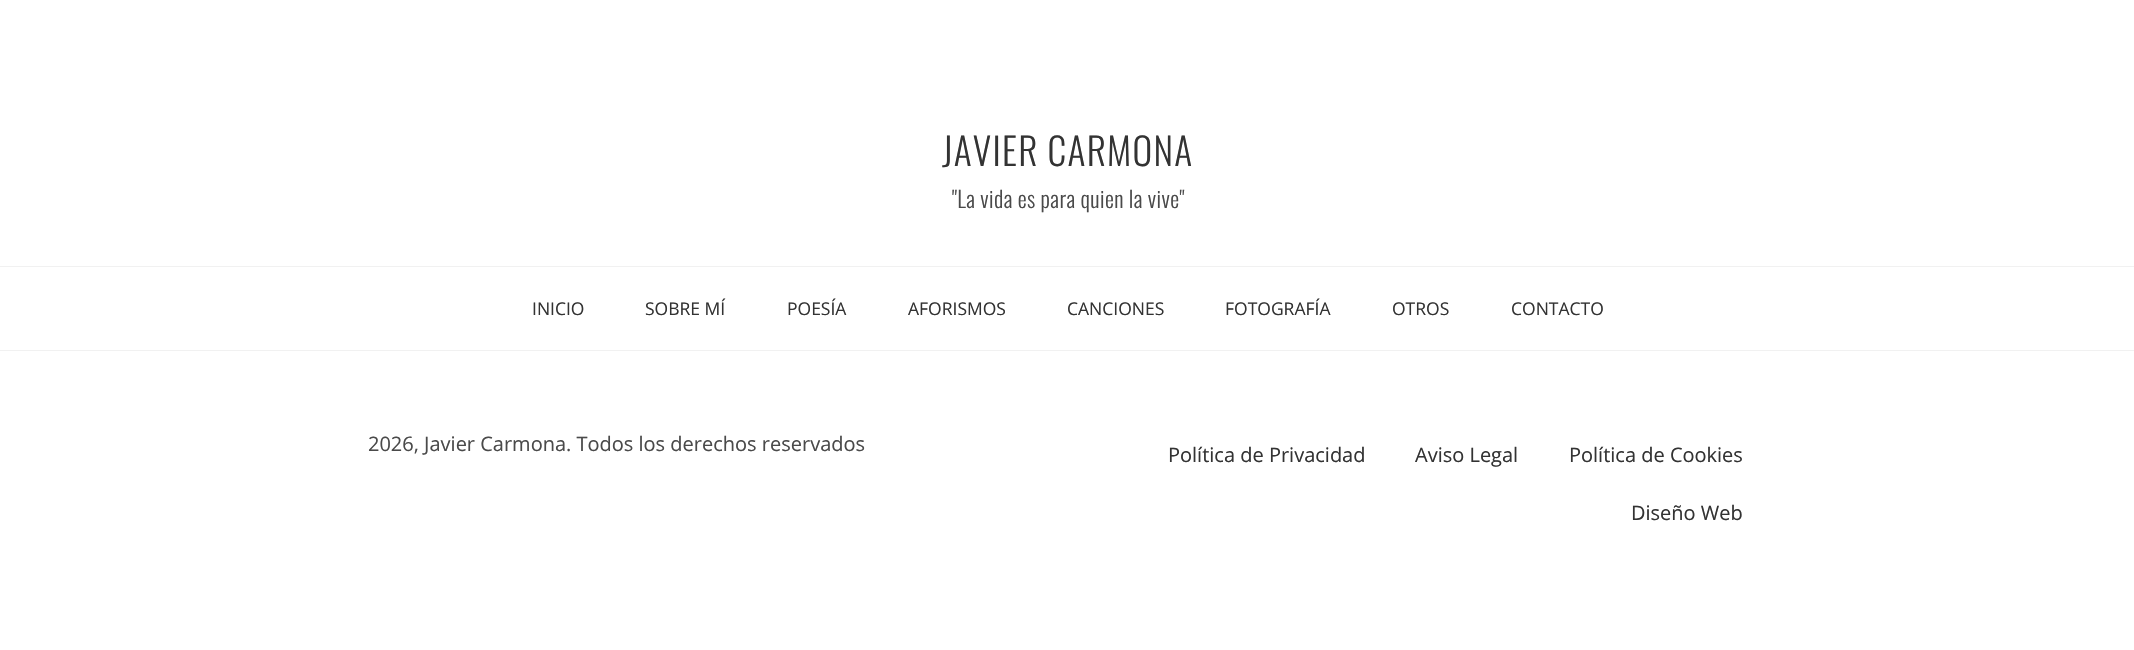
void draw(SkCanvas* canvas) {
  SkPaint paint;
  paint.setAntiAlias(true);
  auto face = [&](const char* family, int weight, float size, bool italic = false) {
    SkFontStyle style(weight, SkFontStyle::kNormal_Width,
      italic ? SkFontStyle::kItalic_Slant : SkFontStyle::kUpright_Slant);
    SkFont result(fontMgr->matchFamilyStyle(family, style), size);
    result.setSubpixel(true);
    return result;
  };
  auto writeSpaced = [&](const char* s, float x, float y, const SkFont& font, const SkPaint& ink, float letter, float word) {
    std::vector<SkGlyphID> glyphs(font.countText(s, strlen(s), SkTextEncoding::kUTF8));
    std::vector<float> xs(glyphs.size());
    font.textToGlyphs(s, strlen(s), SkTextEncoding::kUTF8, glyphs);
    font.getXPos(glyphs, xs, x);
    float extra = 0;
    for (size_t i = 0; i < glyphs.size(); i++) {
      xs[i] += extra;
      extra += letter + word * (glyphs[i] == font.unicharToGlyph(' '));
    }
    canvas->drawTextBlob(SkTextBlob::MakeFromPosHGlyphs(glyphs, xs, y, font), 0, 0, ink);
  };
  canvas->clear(0xffffffff);
  paint.setColor(0xfff1f1f1);
  canvas->drawRect(SkRect::MakeXYWH(0, 266, 2134, 1), paint);
  canvas->drawRect(SkRect::MakeXYWH(0, 350, 2134, 1), paint);
  auto f0 = face("Oswald", 300, 37.5f);
  paint.setColor(0xff333333);
  writeSpaced("JAVIER CARMONA", 942, 166, f0, paint, 1.25f, 0);
  auto f1 = face("Oswald", 300, 22.5f);
  paint.setColor(0xff4a4a4a);
  writeSpaced("\"La vida es para quien la vive\"", 952, 208, f1, paint, 0.4f, 0);
  auto f2 = face("Open Sans", 400, 17.5f);
  paint.setColor(0xff333333);
  {
    const struct { const char* s; float x, y; } items[] = {
      {"INICIO", 532, 315},
      {"SOBRE MÍ", 645, 315},
      {"POESÍA", 787, 315},
      {"AFORISMOS", 908, 315},
      {"CANCIONES", 1067, 315},
      {"FOTOGRAFÍA", 1225, 315},
      {"OTROS", 1392, 315},
      {"CONTACTO", 1511, 315},
    };
    for (auto [s, x, y] : items) {
      canvas->drawString(s, x, y, f2, paint);
    }
  }
  auto f3 = face("Open Sans", 400, 20);
  paint.setColor(0xff4a4a4a);
  canvas->drawString("2026, Javier Carmona. Todos los derechos reservados", 368, 451, f3, paint);
  paint.setColor(0xff333333);
  {
    const struct { const char* s; float x, y; } items[] = {
      {"Política de Privacidad", 1168, 462},
      {"Aviso Legal", 1415, 462},
      {"Política de Cookies", 1569, 462},
      {"Diseño Web", 1631, 520},
    };
    for (auto [s, x, y] : items) {
      canvas->drawString(s, x, y, f3, paint);
    }
  }
}
